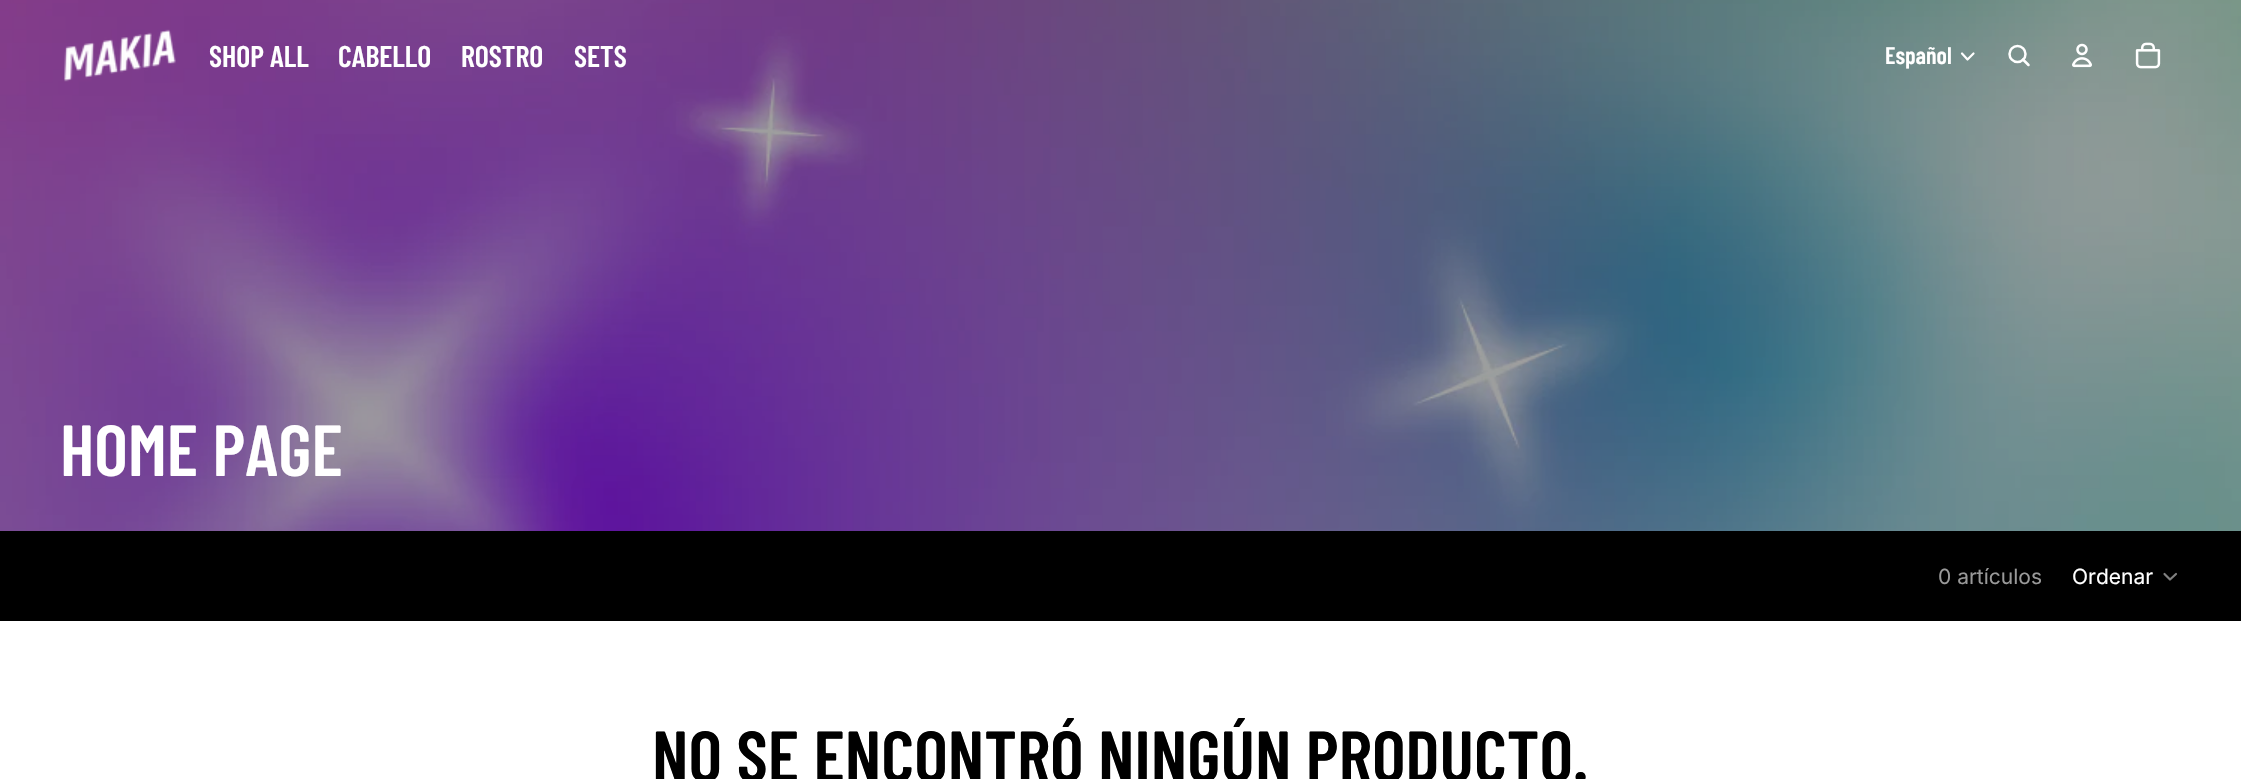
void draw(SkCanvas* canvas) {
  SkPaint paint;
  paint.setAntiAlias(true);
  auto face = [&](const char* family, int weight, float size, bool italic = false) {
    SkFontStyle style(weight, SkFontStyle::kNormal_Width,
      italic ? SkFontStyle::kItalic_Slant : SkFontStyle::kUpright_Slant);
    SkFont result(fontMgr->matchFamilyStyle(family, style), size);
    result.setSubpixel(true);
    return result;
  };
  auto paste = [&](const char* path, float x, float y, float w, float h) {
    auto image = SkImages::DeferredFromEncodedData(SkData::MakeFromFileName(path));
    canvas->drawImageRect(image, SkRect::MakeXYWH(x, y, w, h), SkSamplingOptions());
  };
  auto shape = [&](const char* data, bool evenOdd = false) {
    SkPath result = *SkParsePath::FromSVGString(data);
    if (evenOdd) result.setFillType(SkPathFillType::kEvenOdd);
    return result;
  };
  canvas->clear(0xffffffff);
  paste("img/4.png", 0, 0, 2241, 531);
  paste("img/1.png", 64, 29, 112, 53);
  paint.setStroke(true);
  paint.setStrokeWidth(2.2f);
  paint.setStrokeCap(SkPaint::kRound_Cap);
  paint.setStrokeJoin(SkPaint::kRound_Join);
  paint.setColor(0xffffffff);
  canvas->drawPath(shape("M1973.5 53.5L1967.5 59.5L1962 53.5"), paint);
  paint.setStrokeWidth(2.5f);
  paint.setStrokeCap(SkPaint::kButt_Cap);
  paint.setStrokeJoin(SkPaint::kMiter_Join);
  canvas->drawCircle(2017.5f, 54, 8, paint);
  paint.setStrokeCap(SkPaint::kRound_Cap);
  paint.setStrokeJoin(SkPaint::kRound_Join);
  canvas->drawPath(shape("M2023 59.5L2028.5 65"), paint);
  paste("img/2.png", 2072, 43, 20, 25);
  paste("img/3.png", 2135, 42, 26, 27);
  paint.setStroke(false);
  paint.setColor(0xff000000);
  canvas->drawRect(SkRect::MakeXYWH(0, 531, 2241, 90), paint);
  paint.setStroke(true);
  paint.setStrokeWidth(2.2f);
  paint.setColor(0xff808080);
  canvas->drawPath(shape("M2176 574L2170 579.5L2164.5 574"), paint);
  auto f0 = face("Barlow Condensed", 600, 30);
  paint.setStroke(false);
  paint.setColor(0xffffffff);
  {
    const struct { const char* s; float x, y; } items[] = {
      {"SHOP ALL", 209, 67},
      {"CABELLO", 338, 67},
      {"ROSTRO", 461, 67},
      {"SETS", 574, 67},
    };
    for (auto [s, x, y] : items) {
      canvas->drawString(s, x, y, f0, paint);
    }
  }
  auto f1 = face("Barlow Condensed", 600, 24);
  canvas->drawString("Español", 1885, 64, f1, paint);
  auto f2 = face("Barlow Condensed", 600, 72);
  canvas->drawString("HOME PAGE", 60, 476, f2, paint);
  auto f3 = face("Inter", 400, 21);
  paint.setColor(0xff999999);
  canvas->drawString("0 artículos", 1938, 584, f3, paint);
  paint.setColor(0xffffffff);
  canvas->drawString("Ordenar", 2072, 584, f3, paint);
  paint.setColor(0xff000000);
  canvas->drawString("NO SE ENCONTRÓ NINGÚN PRODUCTO.", 652, 782, f2, paint);
}
